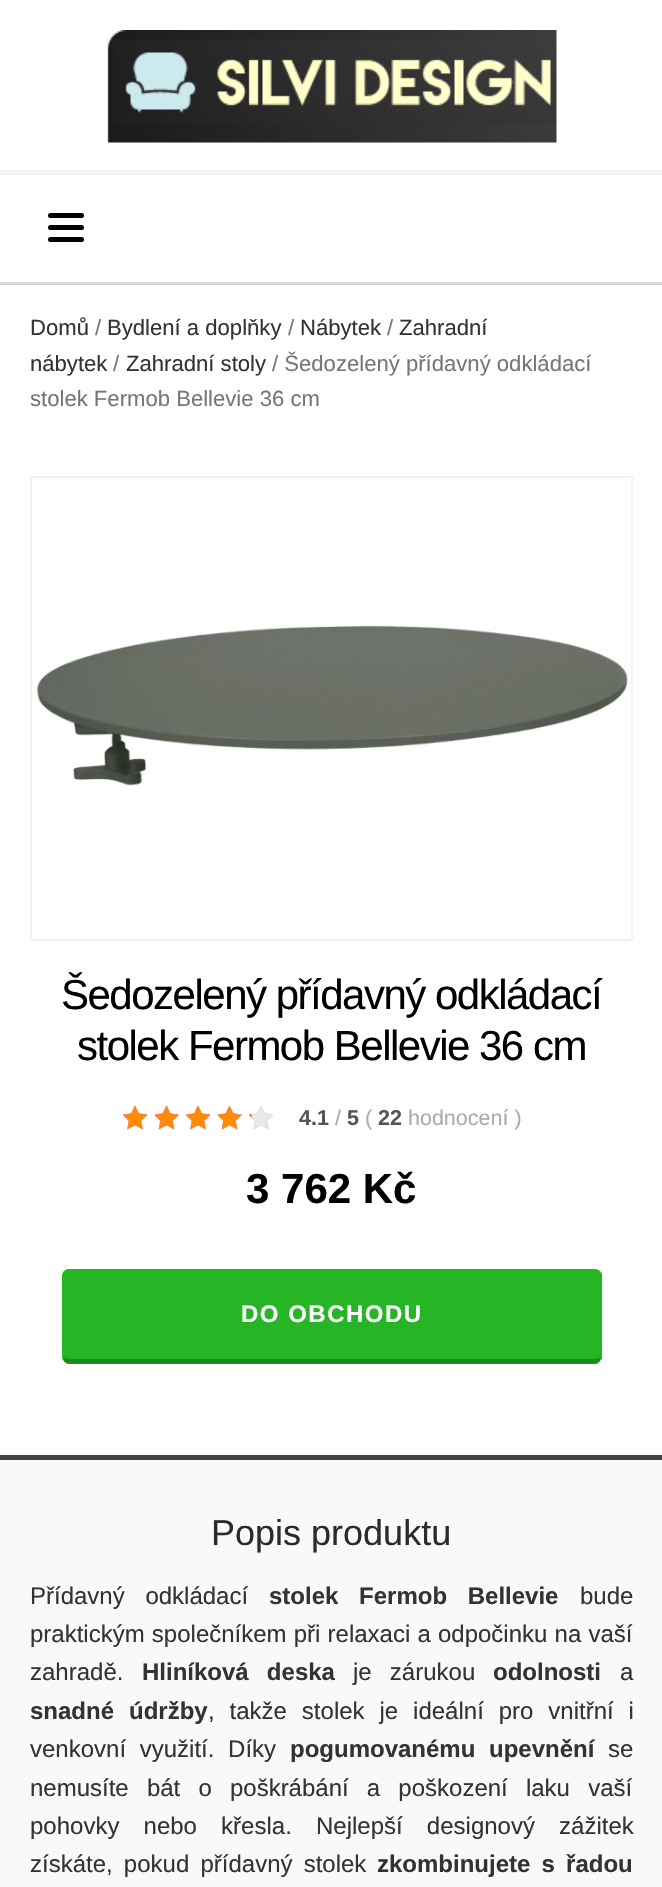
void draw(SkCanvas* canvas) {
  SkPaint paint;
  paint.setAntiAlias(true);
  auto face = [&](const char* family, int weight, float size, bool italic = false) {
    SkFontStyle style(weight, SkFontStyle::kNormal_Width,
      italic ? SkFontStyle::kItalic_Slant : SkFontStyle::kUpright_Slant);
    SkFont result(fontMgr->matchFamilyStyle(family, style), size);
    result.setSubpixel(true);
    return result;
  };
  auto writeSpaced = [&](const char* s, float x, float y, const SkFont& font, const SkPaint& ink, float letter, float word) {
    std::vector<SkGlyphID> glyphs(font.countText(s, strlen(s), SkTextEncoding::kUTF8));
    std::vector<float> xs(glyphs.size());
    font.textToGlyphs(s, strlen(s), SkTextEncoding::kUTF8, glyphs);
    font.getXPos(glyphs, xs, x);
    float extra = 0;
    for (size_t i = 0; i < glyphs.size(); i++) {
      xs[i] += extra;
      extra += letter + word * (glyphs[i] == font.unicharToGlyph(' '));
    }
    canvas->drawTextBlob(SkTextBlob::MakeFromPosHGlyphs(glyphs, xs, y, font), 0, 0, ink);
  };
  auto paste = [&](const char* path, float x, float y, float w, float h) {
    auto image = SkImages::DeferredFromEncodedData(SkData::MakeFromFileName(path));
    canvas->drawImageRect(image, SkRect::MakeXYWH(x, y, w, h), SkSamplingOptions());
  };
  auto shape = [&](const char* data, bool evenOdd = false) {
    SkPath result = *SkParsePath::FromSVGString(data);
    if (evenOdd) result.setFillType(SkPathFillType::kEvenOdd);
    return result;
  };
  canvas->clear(0xffffffff);
  paste("img/1.png", 107, 30, 450, 113);
  paint.setColor(0xffd8d8d8);
  canvas->drawRect(SkRect::MakeXYWH(0, 282, 662, 3), paint);
  paint.setColor(0xfff2f2f2);
  canvas->drawRect(SkRect::MakeXYWH(0, 170, 662, 5), paint);
  paint.setColor(0xff000000);
  canvas->drawRoundRect(SkRect::MakeXYWH(48, 213, 36, 5), 2.5f, 2.5f, paint);
  canvas->drawRoundRect(SkRect::MakeXYWH(48, 225, 36, 5), 2.5f, 2.5f, paint);
  canvas->drawRoundRect(SkRect::MakeXYWH(48, 237, 36, 5), 2.5f, 2.5f, paint);
  paint.setStroke(true);
  paint.setStrokeWidth(2);
  paint.setColor(0xfff2f2f2);
  canvas->drawRect(SkRect::MakeXYWH(31, 477, 601, 463), paint);
  paste("img/2.png", 36, 625, 592, 161);
  paste("img/3.png", 123, 1106, 24, 24);
  paste("img/4.png", 155, 1106, 24, 24);
  paste("img/3.png", 186, 1106, 24, 24);
  paste("img/4.png", 218, 1106, 24, 24);
  paste("img/3.png", 249, 1106, 24, 24);
  paste("img/5.png", 123, 1106, 24, 24);
  paste("img/6.png", 155, 1106, 24, 24);
  paste("img/5.png", 186, 1106, 24, 24);
  paste("img/6.png", 218, 1106, 24, 24);
  paste("img/7.png", 249, 1114, 3, 4);
  paint.setStroke(false);
  paint.setColor(0xff26b524);
  canvas->drawRoundRect(SkRect::MakeXYWH(62, 1269, 540, 95), 8, 8, paint);
  canvas->drawPath(shape("M69 1269C67 1269 65 1270 64 1271L65 1272C66 1271 67 1270 69 1270H594C596 1270 597 1271 598 1272L600 1271C598 1270 596 1269 594 1269Z"), paint);
  canvas->drawPath(shape("M602 1359L600 1360L599 1357L600 1356V1276C600 1275 599 1273 598 1272L600 1271L602 1274Z"), paint);
  paint.setColor(0x3d000000);
  canvas->drawPath(shape("M67 1364C65 1363 64 1361 63 1360L64 1357C65 1358 67 1359 69 1359H594C596 1359 598 1358 599 1357L600 1360C599 1362 598 1363 597 1364Z"), paint);
  paint.setColor(0xff26b524);
  canvas->drawPath(shape("M64 1271C63 1272 62 1274 62 1276V1356L63 1360L64 1357L63 1356V1276C63 1275 64 1273 65 1272Z"), paint);
  paint.setColor(0xfff9f9f9);
  canvas->drawRect(SkRect::MakeXYWH(0, 1460, 662, 427), paint);
  paint.setColor(0xff444444);
  canvas->drawRect(SkRect::MakeXYWH(0, 1455, 662, 5), paint);
  auto f0 = face("Liberation Sans", 400, 22.1f);
  paint.setColor(0xff333333);
  canvas->drawString("Domů", 30, 335, f0, paint);
  paint.setColor(0xff767676);
  canvas->drawString("/", 95, 335, f0, paint);
  paint.setColor(0xff333333);
  canvas->drawString("Bydlení a doplňky", 107, 335, f0, paint);
  paint.setColor(0xff767676);
  canvas->drawString("/", 288, 335, f0, paint);
  paint.setColor(0xff333333);
  canvas->drawString("Nábytek", 300, 335, f0, paint);
  paint.setColor(0xff767676);
  canvas->drawString("/", 387, 335, f0, paint);
  paint.setColor(0xff333333);
  canvas->drawString("Zahradní", 399, 335, f0, paint);
  canvas->drawString("nábytek", 30, 371, f0, paint);
  paint.setColor(0xff767676);
  canvas->drawString("/", 113, 371, f0, paint);
  paint.setColor(0xff333333);
  canvas->drawString("Zahradní stoly", 126, 371, f0, paint);
  paint.setColor(0xff767676);
  canvas->drawString("/ Šedozelený přídavný odkládací", 272, 371, f0, paint);
  canvas->drawString("stolek Fermob Bellevie 36 cm", 30, 406, f0, paint);
  auto f1 = face("Liberation Sans", 400, 42);
  paint.setColor(0xff000000);
  writeSpaced("Šedozelený přídavný odkládací", 61, 1009, f1, paint, -1.5f, 0);
  writeSpaced("stolek Fermob Bellevie 36 cm", 77, 1060, f1, paint, -1.5f, 0);
  auto f2 = face("Liberation Sans", 700, 21.5f);
  paint.setColor(0xff555653);
  canvas->drawString("4.1", 299, 1125, f2, paint);
  auto f3 = face("Liberation Sans", 400, 21.5f);
  paint.setColor(0xffaaaba9);
  canvas->drawString("/", 335, 1125, f3, paint);
  paint.setColor(0xff555653);
  canvas->drawString("5", 347, 1125, f2, paint);
  paint.setColor(0xffaaaba9);
  canvas->drawString("(", 365, 1125, f3, paint);
  paint.setColor(0xff555653);
  canvas->drawString("22", 378, 1125, f2, paint);
  paint.setColor(0xffaaaba9);
  canvas->drawString("hodnocení )", 408, 1125, f3, paint);
  auto f4 = face("Liberation Sans", 700, 42);
  paint.setColor(0xff000000);
  canvas->drawString("3 762 Kč", 246, 1203, f4, paint);
  auto f5 = face("Liberation Sans", 700, 24);
  paint.setColor(0xffffffff);
  writeSpaced("DO OBCHODU", 241, 1322, f5, paint, 1.5f, 0);
  auto f6 = face("Liberation Sans", 400, 36);
  paint.setColor(0xff2b2c28);
  canvas->drawString("Popis produktu", 211, 1545, f6, paint);
  auto f7 = face("Liberation Sans", 400, 24);
  paint.setColor(0xff333333);
  writeSpaced("Přídavný odkládací", 30, 1604, f7, paint, 0, 14);
  writeSpaced("stolek Fermob Bellevie", 269, 1604, f5, paint, 0, 14);
  canvas->drawString("bude", 580, 1604, f7, paint);
  writeSpaced("praktickým společníkem při relaxaci a odpočinku na vaší", 30, 1642, f7, paint, 0, 0.5f);
  canvas->drawString("zahradě.", 30, 1680, f7, paint);
  writeSpaced("Hliníková deska", 142, 1680, f5, paint, 0, 11.5f);
  writeSpaced("je zárukou", 353, 1680, f7, paint, 0, 11.5f);
  canvas->drawString("odolnosti", 493, 1680, f5, paint);
  canvas->drawString("a", 620, 1680, f7, paint);
  canvas->drawString("snadné", 30, 1719, f5, paint);
  canvas->drawString("údržby", 129, 1719, f5, paint);
  writeSpaced(", takže stolek je ideální pro vnitřní i", 208, 1719, f7, paint, 0, 8.25f);
  writeSpaced("venkovní využití. Díky", 30, 1757, f7, paint, 0, 7);
  writeSpaced("pogumovanému upevnění", 290, 1757, f5, paint, 0, 7);
  canvas->drawString("se", 608, 1757, f7, paint);
  writeSpaced("nemusíte bát o poškrábání a poškození laku vaší", 30, 1796, f7, paint, 0, 11.5f);
  writeSpaced("pohovky nebo křesla. Nejlepší designový zážitek", 30, 1834, f7, paint, 0, 17.5f);
  writeSpaced("získáte, pokud přídavný stolek", 30, 1872, f7, paint, 0, 4.5f);
  writeSpaced("zkombinujete s řadou", 377, 1872, f5, paint, 0, 4.5f);
}
